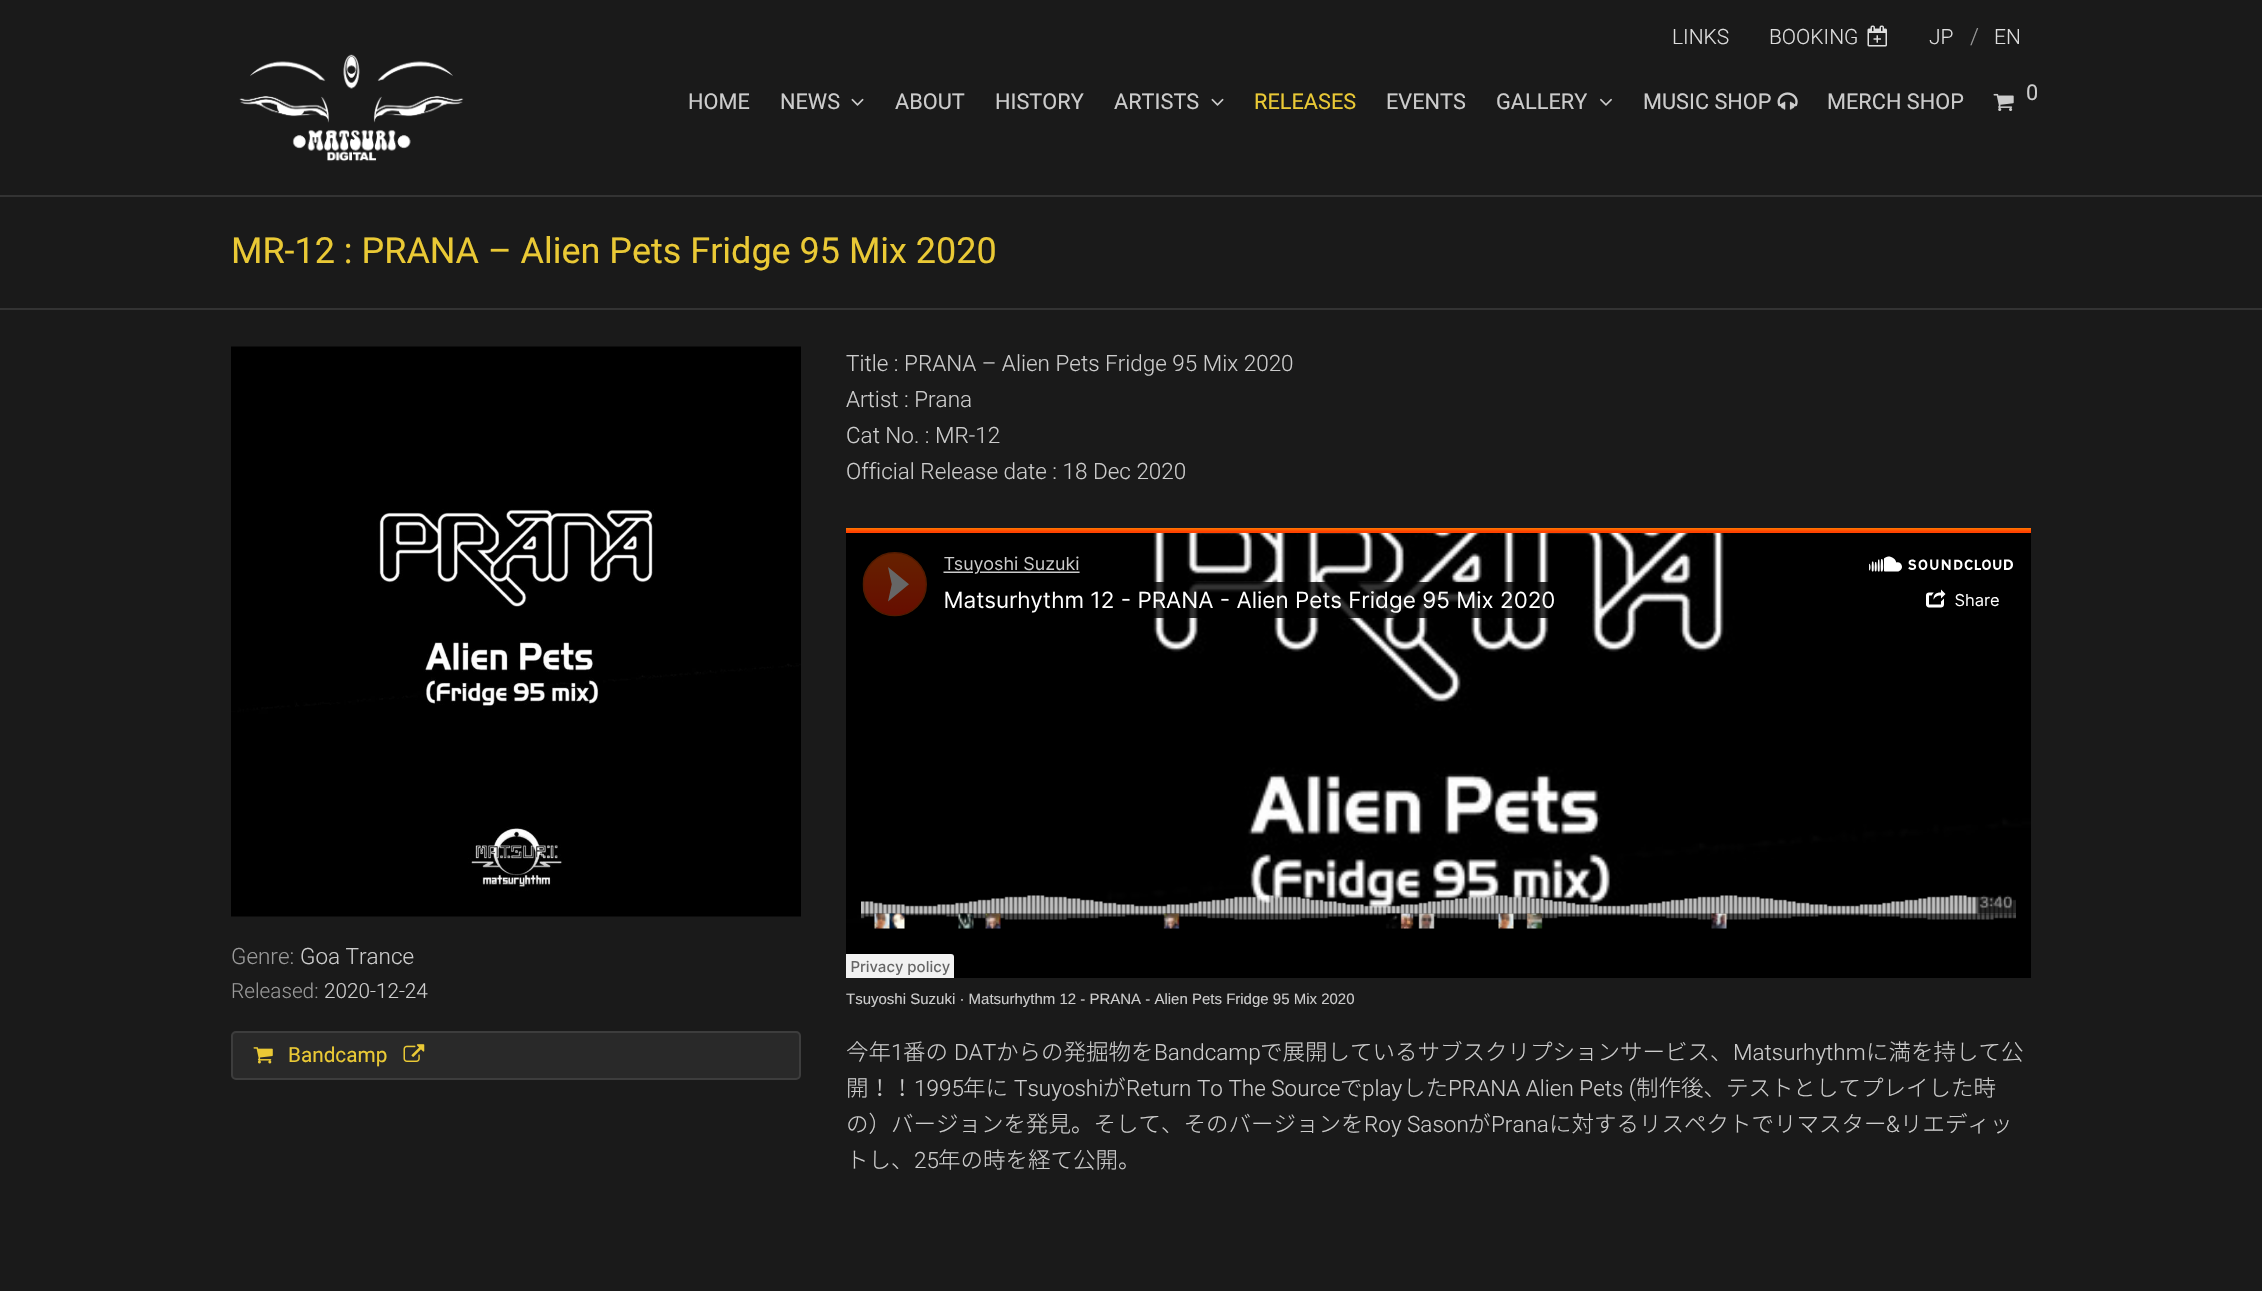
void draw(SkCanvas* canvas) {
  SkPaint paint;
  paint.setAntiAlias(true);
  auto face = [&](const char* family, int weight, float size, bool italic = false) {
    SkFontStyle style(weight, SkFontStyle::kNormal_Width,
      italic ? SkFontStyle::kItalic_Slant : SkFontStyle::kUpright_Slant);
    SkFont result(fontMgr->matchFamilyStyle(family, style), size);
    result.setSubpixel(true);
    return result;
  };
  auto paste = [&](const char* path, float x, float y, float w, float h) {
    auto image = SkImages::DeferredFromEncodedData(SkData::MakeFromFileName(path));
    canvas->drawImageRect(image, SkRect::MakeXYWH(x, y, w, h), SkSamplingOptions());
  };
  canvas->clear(0xff1a1a1a);
  paste("img/1.png", 1867, 25, 20, 22);
  paste("img/2.png", 239, 54, 225, 108);
  paste("img/3.png", 851, 98, 13, 8);
  paste("img/3.png", 1211, 98, 13, 8);
  paste("img/4.png", 1600, 98, 12, 8);
  paste("img/5.png", 1777, 92, 21, 18);
  paste("img/6.png", 1993, 93, 21, 18);
  paint.setColor(0xff333333);
  canvas->drawRect(SkRect::MakeXYWH(0, 195, 2262, 2), paint);
  canvas->drawRect(SkRect::MakeXYWH(0, 308, 2262, 2), paint);
  paste("img/7.png", 231, 346, 570, 571);
  paint.setColor(0xff292929);
  canvas->drawRoundRect(SkRect::MakeXYWH(232, 1032, 568, 47), 4, 4, paint);
  paint.setStroke(true);
  paint.setStrokeWidth(2);
  paint.setColor(0xff3d3d3d);
  canvas->drawRoundRect(SkRect::MakeXYWH(232, 1032, 568, 47), 4, 4, paint);
  paste("img/8.png", 253, 1047, 20, 17);
  paste("img/9.png", 403, 1044, 22, 18);
  paste("img/10.png", 846, 528, 1185, 450);
  auto f0 = face("Roboto", 300, 21);
  paint.setStroke(false);
  paint.setColor(0xffdddddd);
  {
    const struct { const char* s; float x, y; } items[] = {
      {"LINKS", 1672, 44},
      {"BOOKING", 1769, 44},
      {"JP", 1929, 44},
    };
    for (auto [s, x, y] : items) {
      canvas->drawString(s, x, y, f0, paint);
    }
  }
  auto f1 = face("Roboto", 300, 22.5f);
  paint.setColor(0xff999999);
  canvas->drawString("/", 1970, 44, f1, paint);
  paint.setColor(0xffdddddd);
  canvas->drawString("EN", 1994, 44, f0, paint);
  auto f2 = face("Roboto", 400, 21.75f);
  paint.setColor(0xffcccccc);
  {
    const struct { const char* s; float x, y; } items[] = {
      {"HOME", 688, 109},
      {"NEWS", 780, 109},
      {"ABOUT", 895, 109},
      {"HISTORY", 995, 109},
      {"ARTISTS", 1114, 109},
    };
    for (auto [s, x, y] : items) {
      canvas->drawString(s, x, y, f2, paint);
    }
  }
  paint.setColor(0xffeac935);
  canvas->drawString("RELEASES", 1254, 109, f2, paint);
  paint.setColor(0xffcccccc);
  {
    const struct { const char* s; float x, y; } items[] = {
      {"EVENTS", 1386, 109},
      {"GALLERY", 1496, 109},
      {"MUSIC SHOP", 1643, 109},
      {"MERCH SHOP", 1827, 109},
      {"0", 2026, 100},
    };
    for (auto [s, x, y] : items) {
      canvas->drawString(s, x, y, f2, paint);
    }
  }
  auto f3 = face("Roboto", 400, 36);
  paint.setColor(0xffeac935);
  canvas->drawString("MR-12 : PRANA – Alien Pets Fridge 95 Mix 2020", 231, 263, f3, paint);
  paint.setColor(0xff999999);
  canvas->drawString("Genre:", 231, 964, f1, paint);
  paint.setColor(0xffcccccc);
  canvas->drawString("Goa Trance", 300, 964, f1, paint);
  auto f4 = face("Roboto", 300, 20.75f);
  paint.setColor(0xff999999);
  canvas->drawString("Released:", 231, 998, f4, paint);
  paint.setColor(0xffcccccc);
  canvas->drawString("2020-12-24", 324, 998, f4, paint);
  auto f5 = face("Roboto", 400, 20.75f);
  paint.setColor(0xffeac935);
  canvas->drawString("Bandcamp", 288, 1062, f5, paint);
  paint.setColor(0xffcccccc);
  {
    const struct { const char* s; float x, y; } items[] = {
      {"Title : PRANA – Alien Pets Fridge 95 Mix 2020", 846, 371},
      {"Artist : Prana", 846, 407},
      {"Cat No. : MR-12", 846, 443},
      {"Official Release date : 18 Dec 2020", 846, 479},
    };
    for (auto [s, x, y] : items) {
      canvas->drawString(s, x, y, f1, paint);
    }
  }
  auto f6 = face("Liberation Sans", 400, 15);
  canvas->drawString("Tsuyoshi Suzuki · Matsurhythm 12 - PRANA - Alien Pets Fridge 95 Mix 2020", 846, 1004, f6, paint);
  auto f7 = face("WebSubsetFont", 300, 22.5f);
  canvas->drawString("今年", 846, 1060, f7, paint);
  canvas->drawString("1", 891, 1060, f1, paint);
  canvas->drawString("番の", 903, 1060, f7, paint);
  canvas->drawString("DAT", 954, 1060, f1, paint);
  canvas->drawString("からの発掘物を", 996, 1060, f7, paint);
  canvas->drawString("Bandcamp", 1154, 1060, f1, paint);
  canvas->drawString("で展開しているサブスクリプションサービス、", 1260, 1060, f7, paint);
  canvas->drawString("Matsurhythm", 1733, 1060, f1, paint);
  canvas->drawString("に満を持して公", 1866, 1060, f7, paint);
  canvas->drawString("開！！", 846, 1096, f7, paint);
  canvas->drawString("1995", 914, 1096, f1, paint);
  canvas->drawString("年に", 963, 1096, f7, paint);
  canvas->drawString("Tsuyoshi", 1014, 1096, f1, paint);
  canvas->drawString("が", 1103, 1096, f7, paint);
  canvas->drawString("Return To The Source", 1126, 1096, f1, paint);
  canvas->drawString("で", 1340, 1096, f7, paint);
  canvas->drawString("play", 1362, 1096, f1, paint);
  canvas->drawString("した", 1403, 1096, f7, paint);
  canvas->drawString("PRANA Alien Pets (", 1448, 1096, f1, paint);
  canvas->drawString("制作後、テストとしてプレイした時", 1636, 1096, f7, paint);
  canvas->drawString("の）バージョンを発見。そして、そのバージョンを", 846, 1132, f7, paint);
  canvas->drawString("Roy Sason", 1364, 1132, f1, paint);
  canvas->drawString("が", 1468, 1132, f7, paint);
  canvas->drawString("Prana", 1491, 1132, f1, paint);
  canvas->drawString("に対するリスペクトでリマスター", 1549, 1132, f7, paint);
  canvas->drawString("&", 1886, 1132, f1, paint);
  canvas->drawString("リエディッ", 1900, 1132, f7, paint);
  canvas->drawString("トし、", 846, 1168, f7, paint);
  canvas->drawString("25", 914, 1168, f1, paint);
  canvas->drawString("年の時を経て公開。", 938, 1168, f7, paint);
}
